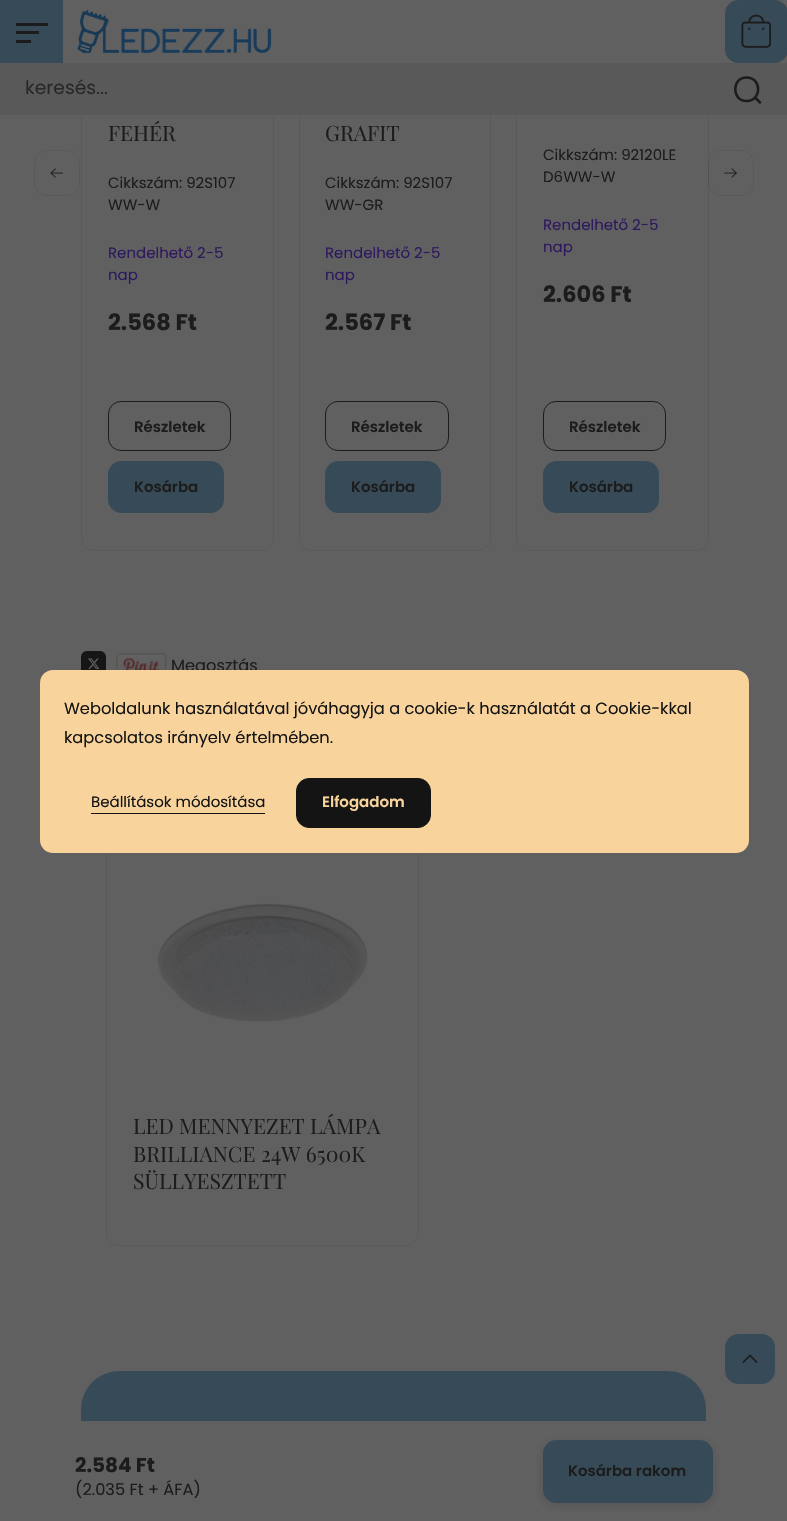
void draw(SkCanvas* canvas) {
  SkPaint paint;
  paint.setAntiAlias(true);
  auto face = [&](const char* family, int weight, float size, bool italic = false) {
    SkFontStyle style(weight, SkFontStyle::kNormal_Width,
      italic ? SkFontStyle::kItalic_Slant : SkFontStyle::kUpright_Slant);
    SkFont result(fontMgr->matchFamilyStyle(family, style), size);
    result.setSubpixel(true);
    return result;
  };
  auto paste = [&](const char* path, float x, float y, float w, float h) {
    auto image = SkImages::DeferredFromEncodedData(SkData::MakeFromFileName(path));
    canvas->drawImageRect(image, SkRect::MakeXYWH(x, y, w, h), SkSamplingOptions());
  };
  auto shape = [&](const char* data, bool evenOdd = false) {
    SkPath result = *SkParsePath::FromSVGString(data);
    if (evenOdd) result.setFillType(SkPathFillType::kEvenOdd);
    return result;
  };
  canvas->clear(0xff606061);
  paint.setStroke(true);
  paint.setStrokeWidth(1);
  paint.setColor(0x1a1c1c1c);
  canvas->drawRoundRect(SkRect::MakeXYWH(81.5f, -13.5f, 192, 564), 12.5f, 12.5f, paint);
  canvas->drawRoundRect(SkRect::MakeXYWH(299.5f, -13.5f, 191, 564), 12.5f, 12.5f, paint);
  canvas->drawRoundRect(SkRect::MakeXYWH(516.5f, -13.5f, 192, 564), 12.5f, 12.5f, paint);
  paint.setStroke(false);
  {
    const struct { float x, y, w, h; SkColor color; } items[] = {
      {81, 0, 628, 63, 0xff606061},
      {0, 63, 787, 52, 0xff59595a},
      {0, 0, 63, 63, 0xff374a57},
      {16, 23, 32, 3, 0xff1c1c1c},
      {16, 31, 23, 3, 0xff1c1c1c},
      {16, 40, 15, 3, 0xff1c1c1c},
    };
    for (auto [x, y, w, h, color] : items) {
      paint.setColor(color);
      canvas->drawRect(SkRect::MakeXYWH(x, y, w, h), paint);
    }
  }
  paste("img/1.png", 77, 9, 195, 45);
  paint.setColor(0xff374a57);
  canvas->drawRoundRect(SkRect::MakeXYWH(725.5f, 0.5f, 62, 62), 12.5f, 12.5f, paint);
  paint.setStroke(true);
  canvas->drawRoundRect(SkRect::MakeXYWH(725.5f, 0.5f, 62, 62), 12.5f, 12.5f, paint);
  paste("img/2.png", 741, 14, 30, 34);
  paint.setStrokeWidth(2.5f);
  paint.setStrokeCap(SkPaint::kRound_Cap);
  paint.setStrokeJoin(SkPaint::kRound_Join);
  paint.setColor(0xff1c1c1c);
  canvas->drawPath(shape("M760 102.5L755 97.5M746.5 101C731.5 101 731.5 77.5 746.5 77.5C762 77.5 762 101 746.5 101Z"), paint);
  paint.setStrokeWidth(1);
  paint.setStrokeCap(SkPaint::kButt_Cap);
  paint.setStrokeJoin(SkPaint::kMiter_Join);
  paint.setColor(0xff59595a);
  canvas->drawRoundRect(SkRect::MakeXYWH(34.5f, 150.5f, 45, 45), 12.5f, 12.5f, paint);
  paste("img/3.png", 50, 168, 13, 10);
  paint.setColor(0xff1c1c1c);
  canvas->drawRoundRect(SkRect::MakeXYWH(108.5f, 401.5f, 122, 49), 12.5f, 12.5f, paint);
  paint.setStroke(false);
  paint.setColor(0xff374a57);
  canvas->drawRoundRect(SkRect::MakeXYWH(108.5f, 461.5f, 115, 51), 12.5f, 12.5f, paint);
  paint.setStroke(true);
  canvas->drawRoundRect(SkRect::MakeXYWH(108.5f, 461.5f, 115, 51), 12.5f, 12.5f, paint);
  paint.setColor(0xff1c1c1c);
  canvas->drawRoundRect(SkRect::MakeXYWH(325.5f, 401.5f, 123, 49), 12.5f, 12.5f, paint);
  paint.setStroke(false);
  paint.setColor(0xff374a57);
  canvas->drawRoundRect(SkRect::MakeXYWH(325.5f, 461.5f, 115, 51), 12.5f, 12.5f, paint);
  paint.setStroke(true);
  canvas->drawRoundRect(SkRect::MakeXYWH(325.5f, 461.5f, 115, 51), 12.5f, 12.5f, paint);
  paint.setColor(0xff1c1c1c);
  canvas->drawRoundRect(SkRect::MakeXYWH(543.5f, 401.5f, 122, 49), 12.5f, 12.5f, paint);
  paint.setStroke(false);
  paint.setColor(0xff374a57);
  canvas->drawRoundRect(SkRect::MakeXYWH(543.5f, 461.5f, 115, 51), 12.5f, 12.5f, paint);
  paint.setStroke(true);
  canvas->drawRoundRect(SkRect::MakeXYWH(543.5f, 461.5f, 115, 51), 12.5f, 12.5f, paint);
  paint.setColor(0x1a1c1c1c);
  canvas->drawRoundRect(SkRect::MakeXYWH(708.5f, 150.5f, 45, 45), 12.5f, 12.5f, paint);
  paste("img/4.png", 724, 168, 13, 10);
  paste("img/5.png", 81, 651, 25, 19);
  paste("img/6.png", 116, 653, 51, 17);
  paint.setStroke(false);
  paint.setColor(0xff374a57);
  canvas->drawRoundRect(SkRect::MakeXYWH(81, 1371, 625, 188), 38, 38, paint);
  paint.setColor(0xff606061);
  canvas->drawRect(SkRect::MakeXYWH(81, 1421, 625, 100), paint);
  paint.setColor(0x331c1c1c);
  paint.setMaskFilter(SkMaskFilter::MakeBlur(kNormal_SkBlurStyle, 5));
  canvas->drawRoundRect(SkRect::MakeXYWH(543, 1443, 170, 62), 13, 13, paint);
  paint.setMaskFilter(nullptr);
  paint.setColor(0xff374a57);
  canvas->drawRoundRect(SkRect::MakeXYWH(543.5f, 1440.5f, 169, 62), 12.5f, 12.5f, paint);
  paint.setStroke(true);
  canvas->drawRoundRect(SkRect::MakeXYWH(543.5f, 1440.5f, 169, 62), 12.5f, 12.5f, paint);
  paint.setColor(0x1a1c1c1c);
  canvas->drawRoundRect(SkRect::MakeXYWH(106.5f, 810.5f, 312, 435), 12.5f, 12.5f, paint);
  paste("img/7.png", 157, 903, 211, 119);
  paint.setStroke(false);
  paint.setColor(0xff374a57);
  canvas->drawRoundRect(SkRect::MakeXYWH(725.5f, 1334.5f, 49, 49), 12.5f, 12.5f, paint);
  paint.setStroke(true);
  canvas->drawRoundRect(SkRect::MakeXYWH(725.5f, 1334.5f, 49, 49), 12.5f, 12.5f, paint);
  paste("img/8.png", 742, 1354, 16, 9);
  auto f0 = face("Poppins", 400, 18.75f);
  paint.setStroke(false);
  paint.setColor(0xff282828);
  canvas->drawString("keresés...", 25, 94, f0, paint);
  auto f1 = face("Playfair Display", 400, 21.25f);
  paint.setColor(0xff1c1c1c);
  canvas->drawString("FEHÉR", 108, 141, f1, paint);
  auto f2 = face("Poppins", 400, 15);
  canvas->drawString("Cikkszám: 92S107", 108, 188, f2, paint);
  canvas->drawString("WW-W", 108, 210, f2, paint);
  paint.setColor(0xff2e185e);
  canvas->drawString("Rendelhető 2-5", 108, 258, f2, paint);
  canvas->drawString("nap", 108, 280, f2, paint);
  auto f3 = face("Poppins", 700, 22.5f);
  paint.setColor(0xff1c1c1c);
  canvas->drawString("2.568 Ft", 108, 330, f3, paint);
  auto f4 = face("Poppins", 600, 15);
  canvas->drawString("Részletek", 134, 432, f4, paint);
  canvas->drawString("Kosárba", 134, 492, f4, paint);
  canvas->drawString("GRAFIT", 325, 141, f1, paint);
  canvas->drawString("Cikkszám: 92S107", 325, 188, f2, paint);
  canvas->drawString("WW-GR", 325, 210, f2, paint);
  paint.setColor(0xff2e185e);
  canvas->drawString("Rendelhető 2-5", 325, 258, f2, paint);
  canvas->drawString("nap", 325, 280, f2, paint);
  paint.setColor(0xff1c1c1c);
  canvas->drawString("2.567 Ft", 325, 330, f3, paint);
  canvas->drawString("Részletek", 351, 432, f4, paint);
  canvas->drawString("Kosárba", 351, 492, f4, paint);
  canvas->drawString("Cikkszám: 92120LE", 543, 160, f2, paint);
  canvas->drawString("D6WW-W", 543, 182, f2, paint);
  paint.setColor(0xff2e185e);
  canvas->drawString("Rendelhető 2-5", 543, 230, f2, paint);
  canvas->drawString("nap", 543, 252, f2, paint);
  paint.setColor(0xff1c1c1c);
  canvas->drawString("2.606 Ft", 543, 302, f3, paint);
  canvas->drawString("Részletek", 569, 432, f4, paint);
  canvas->drawString("Kosárba", 569, 492, f4, paint);
  auto f5 = face("Poppins", 400, 16.25f);
  canvas->drawString("Megosztás", 171, 671, f5, paint);
  auto f6 = face("Poppins", 700, 20);
  canvas->drawString("2.584 Ft", 75, 1472, f6, paint);
  canvas->drawString("(2.035 Ft + ÁFA)", 75, 1495, f5, paint);
  canvas->drawString("Kosárba rakom", 568, 1476, f4, paint);
  {
    const struct { const char* s; float x, y; } items[] = {
      {"LED MENNYEZET LÁMPA", 133, 1134},
      {"BRILLIANCE 24W 6500K", 133, 1162},
      {"SÜLLYESZTETT", 133, 1189},
    };
    for (auto [s, x, y] : items) {
      canvas->drawString(s, x, y, f1, paint);
    }
  }
  paint.setColor(0xfff8d39c);
  canvas->drawRoundRect(SkRect::MakeXYWH(40, 670, 709, 183), 13, 13, paint);
  paint.setColor(0xff141414);
  canvas->drawString("Weboldalunk használatával jóváhagyja a cookie-k használatát a Cookie-kkal", 64, 714, f5, paint);
  canvas->drawString("kapcsolatos irányelv értelmében.", 64, 743, f5, paint);
  canvas->drawString("Beállítások módosítása", 91, 807, f2, paint);
  canvas->drawRect(SkRect::MakeXYWH(91, 813, 174, 1), paint);
  canvas->drawRoundRect(SkRect::MakeXYWH(296.5f, 778.5f, 134, 49), 12.5f, 12.5f, paint);
  paint.setStroke(true);
  canvas->drawRoundRect(SkRect::MakeXYWH(296.5f, 778.5f, 134, 49), 12.5f, 12.5f, paint);
  paint.setStroke(false);
  paint.setColor(0xfff8d39c);
  canvas->drawString("Elfogadom", 322, 807, f4, paint);
}
